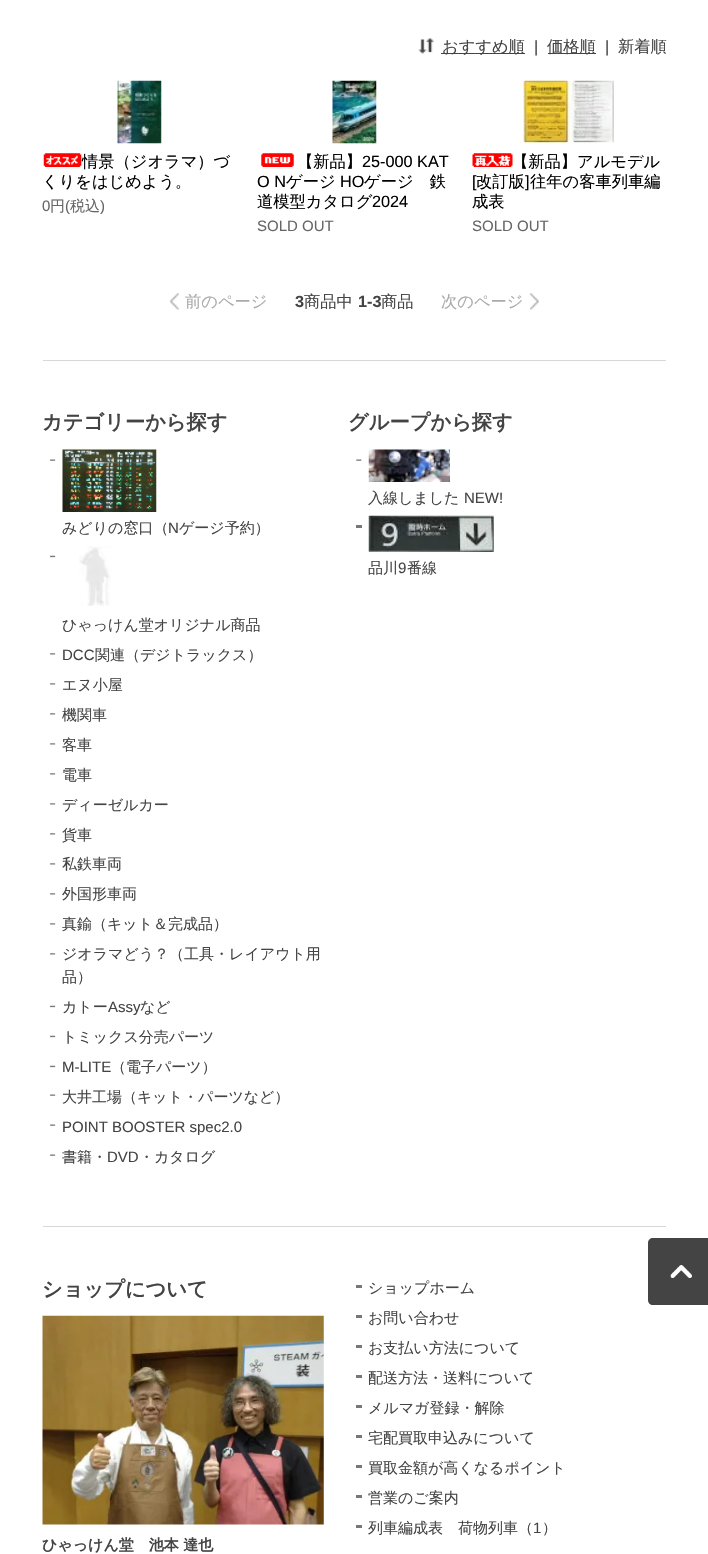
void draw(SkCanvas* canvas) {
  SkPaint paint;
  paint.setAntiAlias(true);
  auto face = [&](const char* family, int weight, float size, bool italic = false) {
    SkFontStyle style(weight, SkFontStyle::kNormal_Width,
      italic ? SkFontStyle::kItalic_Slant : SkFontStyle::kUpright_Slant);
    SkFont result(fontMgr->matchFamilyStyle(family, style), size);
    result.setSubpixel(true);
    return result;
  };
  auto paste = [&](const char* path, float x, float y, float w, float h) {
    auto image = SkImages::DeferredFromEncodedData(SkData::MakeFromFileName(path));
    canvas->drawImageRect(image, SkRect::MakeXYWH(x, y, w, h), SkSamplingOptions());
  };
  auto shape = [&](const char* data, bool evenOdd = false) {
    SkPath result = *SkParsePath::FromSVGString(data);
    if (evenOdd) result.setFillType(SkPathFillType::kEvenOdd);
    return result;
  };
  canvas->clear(0xffffffff);
  paste("img/1.png", 418, 38, 16, 16);
  paint.setColor(0xff444444);
  canvas->drawRect(SkRect::MakeXYWH(441, 53, 84, 1), paint);
  canvas->drawRect(SkRect::MakeXYWH(548, 53, 48, 1), paint);
  paste("img/2.png", 117, 80, 45, 64);
  paste("img/3.png", 43, 153, 39, 14);
  paste("img/4.png", 332, 80, 45, 64);
  paste("img/5.png", 261, 153, 33, 14);
  paste("img/6.png", 523, 80, 91, 64);
  paste("img/7.png", 472, 153, 41, 14);
  paste("img/8.png", 170, 293, 9, 17);
  paste("img/9.png", 529, 293, 10, 17);
  paint.setColor(0xffd8d8d8);
  canvas->drawRect(SkRect::MakeXYWH(43, 360, 623, 1), paint);
  paste("img/10.png", 49, 459, 7, 2);
  paste("img/11.png", 62, 449, 95, 63);
  paste("img/12.png", 49, 555, 7, 3);
  paste("img/13.png", 79, 546, 32, 60);
  paste("img/14.png", 49, 653, 7, 2);
  paste("img/14.png", 49, 683, 7, 2);
  paste("img/14.png", 49, 713, 7, 2);
  paste("img/14.png", 49, 743, 7, 2);
  paste("img/14.png", 49, 773, 7, 2);
  paste("img/14.png", 49, 803, 7, 2);
  paste("img/14.png", 49, 833, 7, 2);
  paste("img/14.png", 49, 863, 7, 2);
  paste("img/14.png", 49, 893, 7, 2);
  paste("img/14.png", 49, 923, 7, 2);
  paste("img/14.png", 49, 953, 7, 2);
  paste("img/12.png", 49, 1005, 7, 3);
  paste("img/12.png", 49, 1035, 7, 3);
  paste("img/12.png", 49, 1065, 7, 3);
  paste("img/10.png", 49, 1094, 7, 2);
  paste("img/10.png", 49, 1124, 7, 2);
  paste("img/10.png", 49, 1154, 7, 2);
  paste("img/15.png", 356, 459, 6, 2);
  paste("img/16.png", 368, 449, 82, 33);
  paint.setColor(0xff777777);
  canvas->drawRect(SkRect::MakeXYWH(356, 525, 6, 3), paint);
  paste("img/17.png", 368, 515, 126, 37);
  paint.setColor(0xffd8d8d8);
  canvas->drawRect(SkRect::MakeXYWH(43, 1226, 623, 1), paint);
  paste("img/18.png", 42, 1315, 282, 210);
  {
    const struct { float x, y, w, h; SkColor color; } items[] = {
      {356, 1285, 6, 3, 0xff777777},
      {356, 1315, 6, 3, 0xff777777},
      {356, 1345, 6, 3, 0xff777777},
      {356, 1375, 6, 3, 0xff777777},
      {356, 1405, 6, 3, 0xff777777},
      {356, 1435, 6, 3, 0xff777777},
      {356, 1465, 6, 3, 0xff777777},
      {356, 1495, 6, 3, 0xff777777},
      {356, 1525, 6, 3, 0xff777777},
    };
    for (auto [x, y, w, h, color] : items) {
      paint.setColor(color);
      canvas->drawRect(SkRect::MakeXYWH(x, y, w, h), paint);
    }
  }
  paint.setColor(0xff444444);
  canvas->drawPath(shape("M653 1238H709V1305H653C650 1305 648 1303 648 1300V1243C648 1240 650 1238 653 1238Z"), paint);
  paste("img/19.png", 670, 1265, 22, 13);
  auto f0 = face("WenQuanYi Zen Hei", 500, 16.25f);
  canvas->drawString("おすすめ順", 442, 52, f0, paint);
  auto f1 = face("Liberation Sans", 400, 16.25f);
  canvas->drawString("|", 534, 52, f1, paint);
  canvas->drawString("価格順", 547, 52, f0, paint);
  canvas->drawString("|", 605, 52, f1, paint);
  canvas->drawString("新着順", 618, 52, f0, paint);
  paint.setColor(0xff000000);
  canvas->drawString("情景（ジオラマ）づ", 82, 167, f0, paint);
  canvas->drawString("くりをはじめよう。", 42, 187, f0, paint);
  auto f2 = face("Liberation Sans", 400, 15);
  paint.setColor(0xff666666);
  canvas->drawString("0", 42, 211, f2, paint);
  auto f3 = face("WenQuanYi Zen Hei", 500, 15);
  canvas->drawString("円", 50, 211, f3, paint);
  canvas->drawString("(", 65, 211, f2, paint);
  canvas->drawString("税込", 70, 211, f3, paint);
  canvas->drawString(")", 100, 211, f2, paint);
  paint.setColor(0xff000000);
  canvas->drawString("【新品】", 297, 167, f0, paint);
  canvas->drawString("25-000 KAT", 362, 167, f1, paint);
  canvas->drawString("O N", 257, 187, f1, paint);
  canvas->drawString("ゲージ", 286, 187, f0, paint);
  canvas->drawString("HO", 340, 187, f1, paint);
  canvas->drawString("ゲージ　鉄", 364, 187, f0, paint);
  canvas->drawString("道模型カタログ", 257, 207, f0, paint);
  canvas->drawString("2024", 372, 207, f1, paint);
  paint.setColor(0xff666666);
  canvas->drawString("SOLD OUT", 257, 231, f2, paint);
  paint.setColor(0xff000000);
  canvas->drawString("【新品】アルモデル", 512, 167, f0, paint);
  canvas->drawString("[", 472, 187, f1, paint);
  canvas->drawString("改訂版", 476, 187, f0, paint);
  canvas->drawString("]", 525, 187, f1, paint);
  canvas->drawString("往年の客車列車編", 530, 187, f0, paint);
  canvas->drawString("成表", 472, 207, f0, paint);
  paint.setColor(0xff666666);
  canvas->drawString("SOLD OUT", 472, 231, f2, paint);
  paint.setColor(0xffaaaaaa);
  canvas->drawString("前のページ", 185, 307, f0, paint);
  auto f4 = face("Liberation Sans", 700, 16.25f);
  paint.setColor(0xff444444);
  canvas->drawString("3", 295, 307, f4, paint);
  canvas->drawString("商品中", 304, 307, f0, paint);
  canvas->drawString("1-3", 358, 307, f4, paint);
  canvas->drawString("商品", 381, 307, f0, paint);
  paint.setColor(0xffaaaaaa);
  canvas->drawString("次のページ", 441, 307, f0, paint);
  auto f5 = face("WenQuanYi Zen Hei", 700, 20.25f);
  paint.setColor(0xff444444);
  canvas->drawString("カテゴリーから探す", 42, 429, f5, paint);
  canvas->drawString("みどりの窓口（", 62, 533, f3, paint);
  canvas->drawString("N", 168, 533, f2, paint);
  canvas->drawString("ゲージ予約）", 179, 533, f3, paint);
  canvas->drawString("ひゃっけん堂オリジナル商品", 62, 630, f3, paint);
  canvas->drawString("DCC", 62, 660, f2, paint);
  {
    const struct { const char* s; float x, y; } items[] = {
      {"関連（デジトラックス）", 95, 660},
      {"エヌ小屋", 62, 690},
      {"機関車", 62, 720},
      {"客車", 62, 750},
      {"電車", 62, 780},
      {"ディーゼルカー", 62, 810},
      {"貨車", 62, 840},
      {"私鉄車両", 62, 869},
      {"外国形車両", 62, 899},
      {"真鍮（キット＆完成品）", 62, 929},
      {"ジオラマどう？（工具・レイアウト用", 62, 959},
      {"品）", 62, 982},
      {"カトー", 62, 1012},
    };
    for (auto [s, x, y] : items) {
      canvas->drawString(s, x, y, f3, paint);
    }
  }
  canvas->drawString("Assy", 108, 1012, f2, paint);
  canvas->drawString("など", 140, 1012, f3, paint);
  canvas->drawString("トミックス分売パーツ", 62, 1042, f3, paint);
  canvas->drawString("M-LITE", 62, 1072, f2, paint);
  canvas->drawString("（電子パーツ）", 111, 1072, f3, paint);
  canvas->drawString("大井工場（キット・パーツなど）", 62, 1102, f3, paint);
  canvas->drawString("POINT BOOSTER spec2.0", 62, 1132, f2, paint);
  canvas->drawString("書籍・", 62, 1162, f3, paint);
  canvas->drawString("DVD", 107, 1162, f2, paint);
  canvas->drawString("・カタログ", 139, 1162, f3, paint);
  canvas->drawString("グループから探す", 348, 429, f5, paint);
  canvas->drawString("入線しました", 368, 503, f3, paint);
  canvas->drawString("NEW!", 464, 503, f2, paint);
  canvas->drawString("品川", 368, 573, f3, paint);
  canvas->drawString("9", 398, 573, f2, paint);
  canvas->drawString("番線", 407, 573, f3, paint);
  canvas->drawString("ショップについて", 42, 1296, f5, paint);
  auto f6 = face("WenQuanYi Zen Hei", 700, 15);
  canvas->drawString("ひゃっけん堂　池本 達也", 42, 1550, f6, paint);
  {
    const struct { const char* s; float x, y; } items[] = {
      {"ショップホーム", 368, 1293},
      {"お問い合わせ", 368, 1323},
      {"お支払い方法について", 368, 1353},
      {"配送方法・送料について", 368, 1383},
      {"メルマガ登録・解除", 368, 1413},
      {"宅配買取申込みについて", 368, 1443},
      {"買取金額が高くなるポイント", 368, 1473},
      {"営業のご案内", 368, 1503},
      {"列車編成表　荷物列車（", 368, 1533},
    };
    for (auto [s, x, y] : items) {
      canvas->drawString(s, x, y, f3, paint);
    }
  }
  canvas->drawString("1", 533, 1533, f2, paint);
  canvas->drawString("）", 542, 1533, f3, paint);
}
